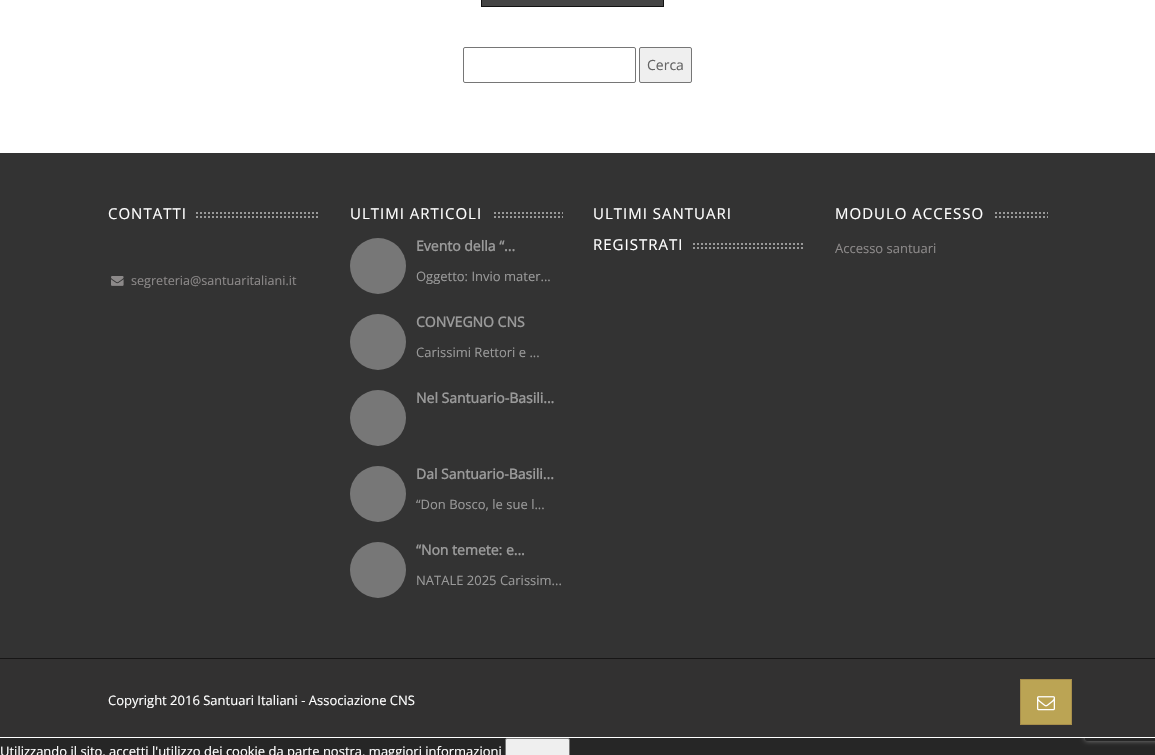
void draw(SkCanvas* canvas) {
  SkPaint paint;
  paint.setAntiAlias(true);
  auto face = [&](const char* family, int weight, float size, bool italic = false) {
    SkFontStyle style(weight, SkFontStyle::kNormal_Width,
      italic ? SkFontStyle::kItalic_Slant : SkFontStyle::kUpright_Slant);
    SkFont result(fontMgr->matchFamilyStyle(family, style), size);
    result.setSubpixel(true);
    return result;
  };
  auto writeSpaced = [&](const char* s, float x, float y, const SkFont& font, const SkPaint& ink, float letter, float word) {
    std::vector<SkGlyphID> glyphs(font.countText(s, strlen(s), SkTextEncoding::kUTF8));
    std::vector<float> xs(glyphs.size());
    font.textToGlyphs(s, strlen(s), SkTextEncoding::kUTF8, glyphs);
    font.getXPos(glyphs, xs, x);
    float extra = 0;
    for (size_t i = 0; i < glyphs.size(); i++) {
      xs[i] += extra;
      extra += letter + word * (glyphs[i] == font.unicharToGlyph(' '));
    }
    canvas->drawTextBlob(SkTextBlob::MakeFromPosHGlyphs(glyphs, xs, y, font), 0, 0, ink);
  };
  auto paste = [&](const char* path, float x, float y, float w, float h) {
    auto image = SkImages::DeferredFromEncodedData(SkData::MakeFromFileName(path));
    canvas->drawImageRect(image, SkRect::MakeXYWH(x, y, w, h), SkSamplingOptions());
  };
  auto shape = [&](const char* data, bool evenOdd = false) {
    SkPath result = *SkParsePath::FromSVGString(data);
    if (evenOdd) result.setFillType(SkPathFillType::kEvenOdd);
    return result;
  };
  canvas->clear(0xffffffff);
  paint.setColor(0xff454545);
  canvas->drawRect(SkRect::MakeXYWH(481.5f, -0.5f, 182, 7), paint);
  paint.setStroke(true);
  paint.setStrokeWidth(1);
  paint.setColor(0xff121212);
  canvas->drawRect(SkRect::MakeXYWH(481.5f, -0.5f, 182, 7), paint);
  paint.setColor(0xff767676);
  canvas->drawRoundRect(SkRect::MakeXYWH(463.5f, 47.5f, 172, 35), 1.5f, 1.5f, paint);
  paint.setStroke(false);
  paint.setColor(0xffefefef);
  canvas->drawRoundRect(SkRect::MakeXYWH(639.5f, 47.5f, 52, 35), 1.5f, 1.5f, paint);
  paint.setStroke(true);
  paint.setColor(0xff767676);
  canvas->drawRoundRect(SkRect::MakeXYWH(639.5f, 47.5f, 52, 35), 1.5f, 1.5f, paint);
  paint.setStroke(false);
  paint.setColor(0xff333333);
  canvas->drawRect(SkRect::MakeXYWH(0, 153, 1155, 505), paint);
  paint.setStroke(true);
  paint.setStrokeWidth(2);
  paint.setColor(0xff999999);
  paint.setPathEffect(SkDashPathEffect::Make({{2, 2}}, 0));
  canvas->drawPath(shape("M108 217H320"), paint);
  paint.setPathEffect(nullptr);
  paint.setPathEffect(SkDashPathEffect::Make({{2, 2}}, 0));
  canvas->drawPath(shape("M108 213H320"), paint);
  paint.setPathEffect(nullptr);
  paint.setStroke(false);
  paint.setColor(0xff333333);
  canvas->drawRect(SkRect::MakeXYWH(108, 212, 86, 6), paint);
  paste("img/1.png", 111, 276, 13, 10);
  paint.setStroke(true);
  paint.setColor(0xff999999);
  paint.setPathEffect(SkDashPathEffect::Make({{2, 2}}, 0));
  canvas->drawPath(shape("M350 217H563"), paint);
  paint.setPathEffect(nullptr);
  paint.setPathEffect(SkDashPathEffect::Make({{2, 2}}, 0));
  canvas->drawPath(shape("M350 213H563"), paint);
  paint.setPathEffect(nullptr);
  paint.setStroke(false);
  paint.setColor(0xff333333);
  canvas->drawRect(SkRect::MakeXYWH(350, 212, 142, 6), paint);
  paint.setColor(0xff777777);
  canvas->drawCircle(378, 266, 28, paint);
  canvas->drawCircle(378, 342, 28, paint);
  canvas->drawCircle(378, 418, 28, paint);
  canvas->drawCircle(378, 494, 28, paint);
  canvas->drawCircle(378, 570, 28, paint);
  paint.setStroke(true);
  paint.setColor(0xff999999);
  paint.setPathEffect(SkDashPathEffect::Make({{2, 2}}, 0));
  canvas->drawPath(shape("M593 248H805"), paint);
  paint.setPathEffect(nullptr);
  paint.setPathEffect(SkDashPathEffect::Make({{2, 2}}, 0));
  canvas->drawPath(shape("M593 244H805"), paint);
  paint.setPathEffect(nullptr);
  paint.setStroke(false);
  paint.setColor(0xff333333);
  canvas->drawRect(SkRect::MakeXYWH(593, 243, 98, 6), paint);
  paint.setStroke(true);
  paint.setColor(0xff999999);
  paint.setPathEffect(SkDashPathEffect::Make({{2, 2}}, 0));
  canvas->drawPath(shape("M835 217H1048"), paint);
  paint.setPathEffect(nullptr);
  paint.setPathEffect(SkDashPathEffect::Make({{2, 2}}, 0));
  canvas->drawPath(shape("M835 213H1048"), paint);
  paint.setPathEffect(nullptr);
  paint.setStroke(false);
  paint.setColor(0xff333333);
  canvas->drawRect(SkRect::MakeXYWH(835, 212, 158, 6), paint);
  paint.setColor(0xff262626);
  canvas->drawRect(SkRect::MakeXYWH(0, 738, 1155, 17), paint);
  canvas->save();
  canvas->clipPath(shape("M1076 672H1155V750H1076ZM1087 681H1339C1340 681 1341 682 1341 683V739C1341 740 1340 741 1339 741H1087C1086 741 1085 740 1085 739V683C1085 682 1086 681 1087 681Z", true), true);
  paint.setColor(0xff808080);
  paint.setMaskFilter(SkMaskFilter::MakeBlur(kNormal_SkBlurStyle, 2.5f));
  canvas->drawRoundRect(SkRect::MakeXYWH(1085, 681, 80, 60), 2, 2, paint);
  paint.setMaskFilter(nullptr);
  canvas->restore();
  {
    const struct { float x, y, w, h; SkColor color; } items[] = {
      {0, 659, 1155, 78, 0xff323131},
      {0, 658, 1155, 1, 0xff171616},
      {1080, 737, 5, 1, 0xffffffff},
    };
    for (auto [x, y, w, h, color] : items) {
      paint.setColor(color);
      canvas->drawRect(SkRect::MakeXYWH(x, y, w, h), paint);
    }
  }
  paint.setColor(0xffbba454);
  canvas->drawRect(SkRect::MakeXYWH(1020.5f, 679.5f, 51, 45), paint);
  paint.setStroke(true);
  paint.setStrokeWidth(1);
  paint.setColor(0xffa88e4b);
  canvas->drawRect(SkRect::MakeXYWH(1020.5f, 679.5f, 51, 45), paint);
  paste("img/2.png", 1037, 696, 18, 15);
  paint.setStroke(false);
  paint.setColor(0xffefefef);
  canvas->drawRoundRect(SkRect::MakeXYWH(505.5f, 738.5f, 64, 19), 1.5f, 1.5f, paint);
  paint.setStroke(true);
  paint.setColor(0xff767676);
  canvas->drawRoundRect(SkRect::MakeXYWH(505.5f, 738.5f, 64, 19), 1.5f, 1.5f, paint);
  auto f0 = face("Open Sans", 400, 14);
  paint.setStroke(false);
  paint.setColor(0xff646464);
  canvas->drawString("Cerca", 647, 70, f0, paint);
  auto f1 = face("Open Sans", 400, 15);
  paint.setColor(0xffffffff);
  writeSpaced("CONTATTI", 108, 219, f1, paint, 1, 0);
  auto f2 = face("Open Sans", 400, 12.6f);
  paint.setColor(0xff8c8989);
  canvas->drawString("segreteria@santuaritaliani.it", 131, 285, f2, paint);
  paint.setColor(0xffffffff);
  writeSpaced("ULTIMI ARTICOLI", 350, 219, f1, paint, 1, 0);
  auto f3 = face("Open Sans", 700, 14);
  paint.setColor(0xff999999);
  canvas->drawString("Evento della “...", 416, 251, f3, paint);
  auto f4 = face("Open Sans", 400, 13);
  canvas->drawString("Oggetto: Invio mater...", 416, 281, f4, paint);
  canvas->drawString("CONVEGNO CNS", 416, 327, f3, paint);
  canvas->drawString("Carissimi Rettori e ...", 416, 357, f4, paint);
  canvas->drawString("Nel Santuario-Basili...", 416, 403, f3, paint);
  canvas->drawString("Dal Santuario-Basili...", 416, 479, f3, paint);
  canvas->drawString("“Don Bosco, le sue l...", 416, 509, f4, paint);
  canvas->drawString("“Non temete: e...", 416, 555, f3, paint);
  canvas->drawString("NATALE 2025 Carissim...", 416, 585, f4, paint);
  paint.setColor(0xffffffff);
  {
    const struct { const char* s; float x, y; } items[] = {
      {"ULTIMI SANTUARI", 593, 219},
      {"REGISTRATI", 593, 250},
      {"MODULO ACCESSO", 835, 219},
    };
    for (auto [s, x, y] : items) {
      writeSpaced(s, x, y, f1, paint, 1, 0);
    }
  }
  paint.setColor(0xff8c8989);
  canvas->drawString("Accesso santuari", 835, 253, f4, paint);
  paint.setColor(0xffffffff);
  canvas->drawString("Copyright 2016 Santuari Italiani - Associazione CNS", 108, 705, f4, paint);
  canvas->drawString("Utilizzando il sito, accetti l'utilizzo dei cookie da parte nostra. maggiori informazioni", 0, 756, f4, paint);
}
